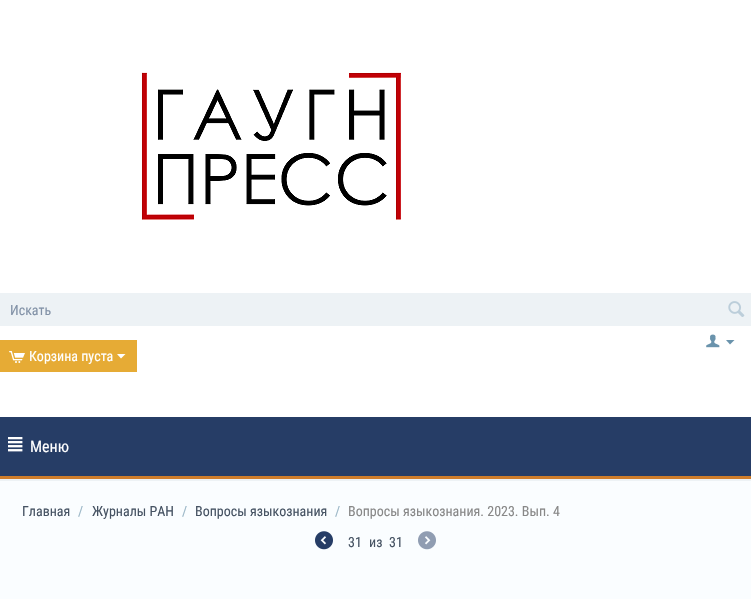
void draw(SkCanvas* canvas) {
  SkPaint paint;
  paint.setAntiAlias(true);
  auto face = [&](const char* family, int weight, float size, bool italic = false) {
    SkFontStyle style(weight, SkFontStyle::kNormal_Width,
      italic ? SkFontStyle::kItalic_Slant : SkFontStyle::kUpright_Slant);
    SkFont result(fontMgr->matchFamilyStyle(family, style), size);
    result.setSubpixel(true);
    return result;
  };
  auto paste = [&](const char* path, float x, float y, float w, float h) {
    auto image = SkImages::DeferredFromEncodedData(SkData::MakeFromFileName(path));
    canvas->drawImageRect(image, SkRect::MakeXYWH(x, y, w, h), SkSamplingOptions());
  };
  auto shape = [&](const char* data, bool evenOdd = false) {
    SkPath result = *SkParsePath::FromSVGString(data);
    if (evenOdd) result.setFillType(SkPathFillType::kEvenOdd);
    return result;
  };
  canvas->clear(0xfffafdff);
  paint.setColor(0xffffffff);
  canvas->drawRect(SkRect::MakeXYWH(0, 0, 751, 417), paint);
  paste("img/1.png", 141, 72, 260, 148);
  paint.setColor(0xffedf2f5);
  canvas->drawRect(SkRect::MakeXYWH(0, 293, 751, 33), paint);
  paste("img/2.png", 728, 301, 17, 16);
  paste("img/3.png", 706, 334, 14, 14);
  paint.setColor(0xff6a93ac);
  canvas->drawPath(shape("M730 344.5L726 340H734.5Z"), paint);
  paint.setColor(0xffe6ab35);
  canvas->drawRect(SkRect::MakeXYWH(0, 340, 137, 32), paint);
  paste("img/4.png", 9, 351, 16, 12);
  paint.setColor(0xffffffff);
  canvas->drawPath(shape("M121 358.5L117 354H125.5Z"), paint);
  paint.setColor(0xffcf7d2b);
  canvas->drawRect(SkRect::MakeXYWH(0, 476, 751, 3), paint);
  paint.setColor(0xff263d66);
  canvas->drawRect(SkRect::MakeXYWH(0, 417, 751, 59), paint);
  paste("img/5.png", 8, 437, 15, 15);
  paint.setColor(0xffedf2f5);
  canvas->drawRect(SkRect::MakeXYWH(0, 479, 751, 2), paint);
  paste("img/6.png", 315, 531, 18, 19);
  paste("img/7.png", 418, 531, 18, 19);
  auto f0 = face("Roboto Condensed", 400, 14);
  paint.setColor(0xff8292a7);
  canvas->drawString("Искать", 10, 315, f0, paint);
  paint.setColor(0xffffffff);
  canvas->drawString("Корзина пуста", 29, 361, f0, paint);
  auto f1 = face("Roboto Condensed", 400, 16);
  canvas->drawString("Меню", 30, 452, f1, paint);
  paint.setColor(0xff465363);
  canvas->drawString("Главная", 22, 516, f0, paint);
  paint.setColor(0xff9bb7c7);
  canvas->drawString("/", 78, 516, f0, paint);
  paint.setColor(0xff465363);
  canvas->drawString("Журналы РАН", 92, 516, f0, paint);
  paint.setColor(0xff9bb7c7);
  canvas->drawString("/", 182, 516, f0, paint);
  paint.setColor(0xff465363);
  canvas->drawString("Вопросы языкознания", 195, 516, f0, paint);
  paint.setColor(0xff9bb7c7);
  canvas->drawString("/", 335, 516, f0, paint);
  paint.setColor(0xff888888);
  canvas->drawString("Вопросы языкознания. 2023. Вып. 4", 348, 516, f0, paint);
  paint.setColor(0xff465363);
  {
    const struct { const char* s; float x, y; } items[] = {
      {"31", 348, 547},
      {"из", 369, 547},
      {"31", 389, 547},
    };
    for (auto [s, x, y] : items) {
      canvas->drawString(s, x, y, f0, paint);
    }
  }
}
